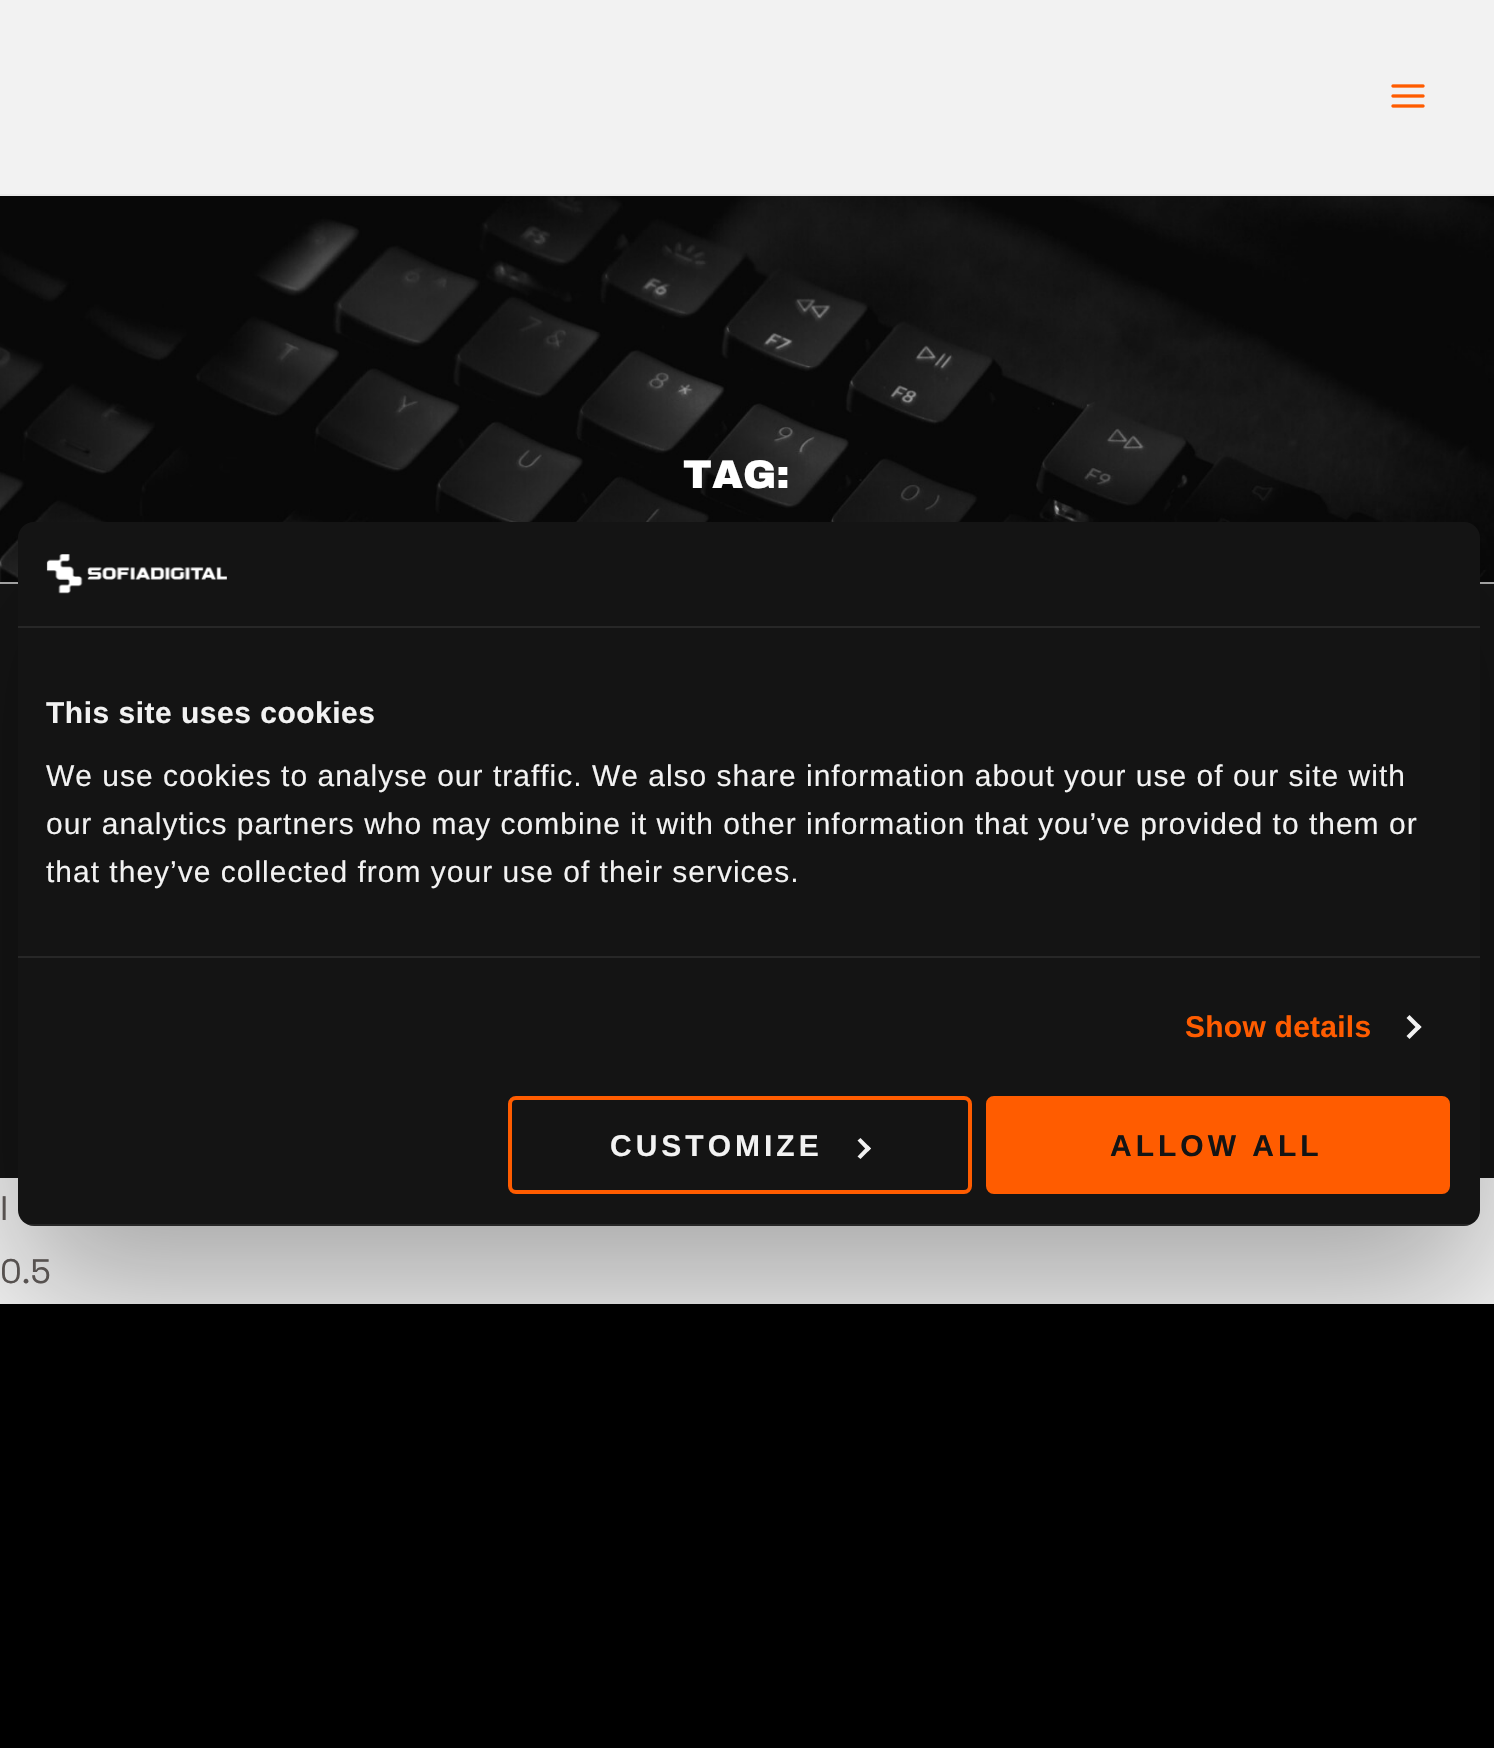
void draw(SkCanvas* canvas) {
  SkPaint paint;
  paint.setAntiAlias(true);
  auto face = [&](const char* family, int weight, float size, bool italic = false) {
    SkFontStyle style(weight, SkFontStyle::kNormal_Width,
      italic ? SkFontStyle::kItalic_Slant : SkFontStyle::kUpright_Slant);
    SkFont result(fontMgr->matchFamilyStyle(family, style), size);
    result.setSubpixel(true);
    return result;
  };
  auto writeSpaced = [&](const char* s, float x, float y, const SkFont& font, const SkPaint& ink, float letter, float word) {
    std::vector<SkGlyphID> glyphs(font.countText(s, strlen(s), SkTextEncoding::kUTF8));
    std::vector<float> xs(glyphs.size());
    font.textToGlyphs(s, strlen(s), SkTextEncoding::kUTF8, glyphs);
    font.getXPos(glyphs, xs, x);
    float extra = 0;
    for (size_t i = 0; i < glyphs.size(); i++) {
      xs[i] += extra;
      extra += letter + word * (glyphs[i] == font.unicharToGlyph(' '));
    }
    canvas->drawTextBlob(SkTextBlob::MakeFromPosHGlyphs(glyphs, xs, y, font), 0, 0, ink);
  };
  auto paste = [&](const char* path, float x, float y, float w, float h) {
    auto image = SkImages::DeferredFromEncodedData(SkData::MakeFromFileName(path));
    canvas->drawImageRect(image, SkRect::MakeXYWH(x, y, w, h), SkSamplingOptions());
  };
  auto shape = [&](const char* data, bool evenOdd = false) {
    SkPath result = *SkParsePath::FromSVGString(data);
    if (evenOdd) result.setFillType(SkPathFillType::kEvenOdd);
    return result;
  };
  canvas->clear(0xffffffff);
  paint.setColor(0xfff2f2f2);
  canvas->drawRect(SkRect::MakeXYWH(0, 0, 1494, 194), paint);
  paint.setColor(0xffeaeaea);
  canvas->drawRect(SkRect::MakeXYWH(0, 194, 1494, 2), paint);
  paste("img/1.png", 1391, 84, 34, 24);
  paste("img/2.png", 0, 196, 1494, 386);
  {
    const struct { float x, y, w, h; SkColor color; } items[] = {
      {0, 584, 1494, 594, 0xff141414},
      {0, 582, 1494, 2, 0xffacacac},
      {0, 1178, 1494, 126, 0xfff2f2f2},
      {0, 1304, 1494, 444, 0xff000000},
    };
    for (auto [x, y, w, h, color] : items) {
      paint.setColor(color);
      canvas->drawRect(SkRect::MakeXYWH(x, y, w, h), paint);
    }
  }
  paint.setColor(0x4d000000);
  paint.setMaskFilter(SkMaskFilter::MakeBlur(kNormal_SkBlurStyle, 68));
  canvas->drawRoundRect(SkRect::MakeXYWH(18, 586, 1462, 704), 16, 16, paint);
  paint.setMaskFilter(nullptr);
  paint.setColor(0xff141414);
  canvas->drawRoundRect(SkRect::MakeXYWH(18, 522, 1462, 704), 16, 16, paint);
  paint.setColor(0xff272727);
  canvas->drawRect(SkRect::MakeXYWH(18, 626, 1462, 2), paint);
  paste("img/3.png", 46, 554, 181, 40);
  canvas->drawRect(SkRect::MakeXYWH(18, 956, 1462, 2), paint);
  paint.setColor(0xfff2f2f2);
  canvas->drawPath(shape("M1409.5 1015L1421.5 1027L1418.5 1030L1406.5 1018Z"), paint);
  canvas->drawPath(shape("M1418.5 1024L1421.5 1027L1409.5 1039L1406.5 1036Z"), paint);
  canvas->save();
  canvas->clipPath(shape("M34 522H1464C1473 522 1480 529 1480 538V1210C1480 1219 1473 1226 1464 1226H34C25 1226 18 1219 18 1210V538C18 529 25 522 34 522Z"), true);
  paint.setColor(0x14ffffff);
  canvas->drawRect(SkRect::MakeXYWH(27, 1224, 1444, 2), paint);
  canvas->restore();
  paint.setStroke(true);
  paint.setStrokeWidth(4);
  paint.setColor(0xffff5c00);
  canvas->drawRoundRect(SkRect::MakeXYWH(510, 1098, 460, 94), 6, 6, paint);
  paint.setStroke(false);
  paint.setColor(0xfff2f2f2);
  canvas->drawPath(shape("M860.5 1138L871 1148.5L868 1151.5L857.5 1140.5Z"), paint);
  canvas->drawPath(shape("M868 1145.5L871 1148.5L860.5 1159L857.5 1156.5Z"), paint);
  paint.setColor(0xffff5c00);
  canvas->drawRoundRect(SkRect::MakeXYWH(988, 1098, 460, 94), 6, 6, paint);
  paint.setStroke(true);
  canvas->drawRoundRect(SkRect::MakeXYWH(988, 1098, 460, 94), 6, 6, paint);
  auto f0 = face("Archivo", 900, 40);
  paint.setStroke(false);
  paint.setColor(0xffffffff);
  canvas->drawString("TAG:", 683, 488, f0, paint);
  auto f1 = face("Space Grotesk", 300, 34);
  paint.setColor(0xff575250);
  canvas->drawString("I", 0, 1220, f1, paint);
  canvas->drawString("0.5", 0, 1283, f1, paint);
  auto f2 = face("Liberation Sans", 700, 30);
  paint.setColor(0xfff2f2f2);
  writeSpaced("This site uses cookies", 46, 723, f2, paint, 0.5f, 0);
  auto f3 = face("Liberation Sans", 400, 30);
  {
    const struct { const char* s; float x, y; } items[] = {
      {"We use cookies to analyse our traffic. We also share information about your use of our site with", 46, 786},
      {"our analytics partners who may combine it with other information that you’ve provided to them or", 46, 834},
      {"that they’ve collected from your use of their services.", 46, 882},
    };
    for (auto [s, x, y] : items) {
      writeSpaced(s, x, y, f3, paint, 1, 0);
    }
  }
  paint.setColor(0xffff5c00);
  writeSpaced("Show details", 1185, 1037, f2, paint, 0.25f, 0);
  paint.setColor(0xfff2f2f2);
  writeSpaced("CUSTOMIZE", 610, 1156, f2, paint, 4, 0);
  paint.setColor(0xff141414);
  writeSpaced("ALLOW ALL", 1110, 1156, f2, paint, 4, 0);
}
